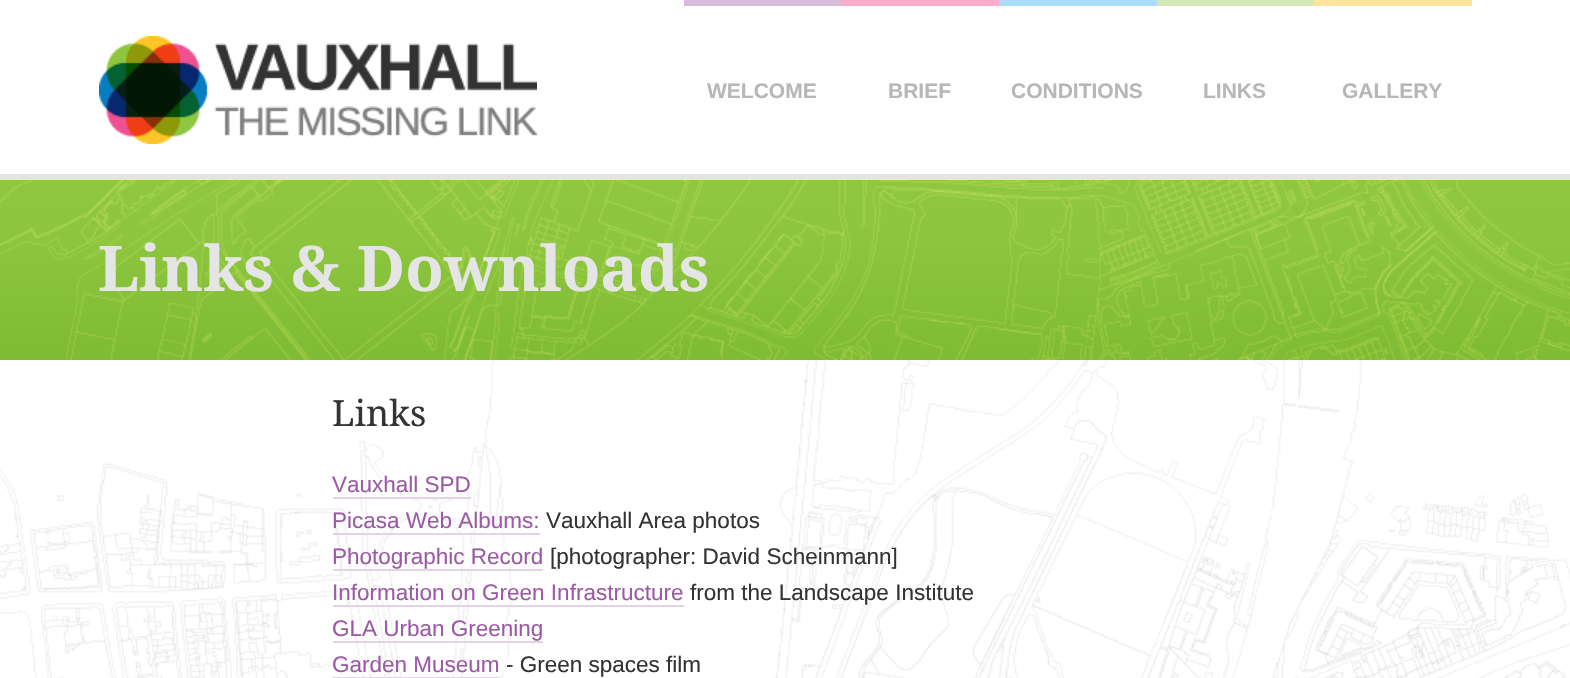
void draw(SkCanvas* canvas) {
  SkPaint paint;
  paint.setAntiAlias(true);
  auto face = [&](const char* family, int weight, float size, bool italic = false) {
    SkFontStyle style(weight, SkFontStyle::kNormal_Width,
      italic ? SkFontStyle::kItalic_Slant : SkFontStyle::kUpright_Slant);
    SkFont result(fontMgr->matchFamilyStyle(family, style), size);
    result.setSubpixel(true);
    return result;
  };
  auto paste = [&](const char* path, float x, float y, float w, float h) {
    auto image = SkImages::DeferredFromEncodedData(SkData::MakeFromFileName(path));
    canvas->drawImageRect(image, SkRect::MakeXYWH(x, y, w, h), SkSamplingOptions());
  };
  canvas->clear(0xffffffff);
  paint.setColor(0xffe4e4e4);
  canvas->drawRect(SkRect::MakeXYWH(0, 174, 1570, 6), paint);
  paste("img/1.png", 99, 36, 438, 108);
  {
    const struct { float x, y, w, h; SkColor color; } items[] = {
      {684, 0, 158, 6, 0xffd7bddb},
      {842, 0, 157, 6, 0xfff8adcc},
      {999, 0, 158, 6, 0xffabdefc},
      {1157, 0, 157, 6, 0xffd4e9b6},
      {1314, 0, 158, 6, 0xffffe59d},
    };
    for (auto [x, y, w, h, color] : items) {
      paint.setColor(color);
      canvas->drawRect(SkRect::MakeXYWH(x, y, w, h), paint);
    }
  }
  paste("img/2.png", 0, 180, 1570, 180);
  paste("img/3.png", 0, 360, 1570, 318);
  {
    const struct { float x, y, w, h; SkColor color; } items[] = {
      {333, 497, 138, 2, 0xffe4d3e7},
      {333, 533, 207, 2, 0xffe4d3e7},
      {333, 569, 210, 2, 0xffe4d3e7},
      {333, 605, 351, 2, 0xffe4d3e7},
      {333, 641, 210, 2, 0xffe4d3e7},
      {333, 677, 167, 1, 0xffe4d3e7},
    };
    for (auto [x, y, w, h, color] : items) {
      paint.setColor(color);
      canvas->drawRect(SkRect::MakeXYWH(x, y, w, h), paint);
    }
  }
  auto f0 = face("Arimo", 700, 21);
  paint.setColor(0xffb7b7b7);
  {
    const struct { const char* s; float x, y; } items[] = {
      {"WELCOME", 707, 98},
      {"BRIEF", 888, 98},
      {"CONDITIONS", 1011, 98},
      {"LINKS", 1203, 98},
      {"GALLERY", 1342, 98},
    };
    for (auto [s, x, y] : items) {
      canvas->drawString(s, x, y, f0, paint);
    }
  }
  auto f1 = face("Droid Serif", 700, 63);
  paint.setColor(0xffe5e5e5);
  canvas->drawString("Links & Downloads", 98, 291, f1, paint);
  auto f2 = face("Droid Serif", 400, 36);
  paint.setColor(0xff333333);
  canvas->drawString("Links", 332, 426, f2, paint);
  auto f3 = face("Arimo", 400, 22.5f);
  paint.setColor(0xff9b5ba4);
  canvas->drawString("Vauxhall SPD", 332, 492, f3, paint);
  canvas->drawString("Picasa Web Albums:", 332, 528, f3, paint);
  paint.setColor(0xff333333);
  canvas->drawString("Vauxhall Area photos", 546, 528, f3, paint);
  paint.setColor(0xff9b5ba4);
  canvas->drawString("Photographic Record", 332, 564, f3, paint);
  paint.setColor(0xff333333);
  canvas->drawString("[photographer: David Scheinmann]", 550, 564, f3, paint);
  paint.setColor(0xff9b5ba4);
  canvas->drawString("Information on Green Infrastructure", 332, 600, f3, paint);
  paint.setColor(0xff333333);
  canvas->drawString("from the Landscape Institute", 690, 600, f3, paint);
  paint.setColor(0xff9b5ba4);
  canvas->drawString("GLA Urban Greening", 332, 636, f3, paint);
  canvas->drawString("Garden Museum", 332, 672, f3, paint);
  paint.setColor(0xff333333);
  canvas->drawString("- Green spaces film", 506, 672, f3, paint);
}
